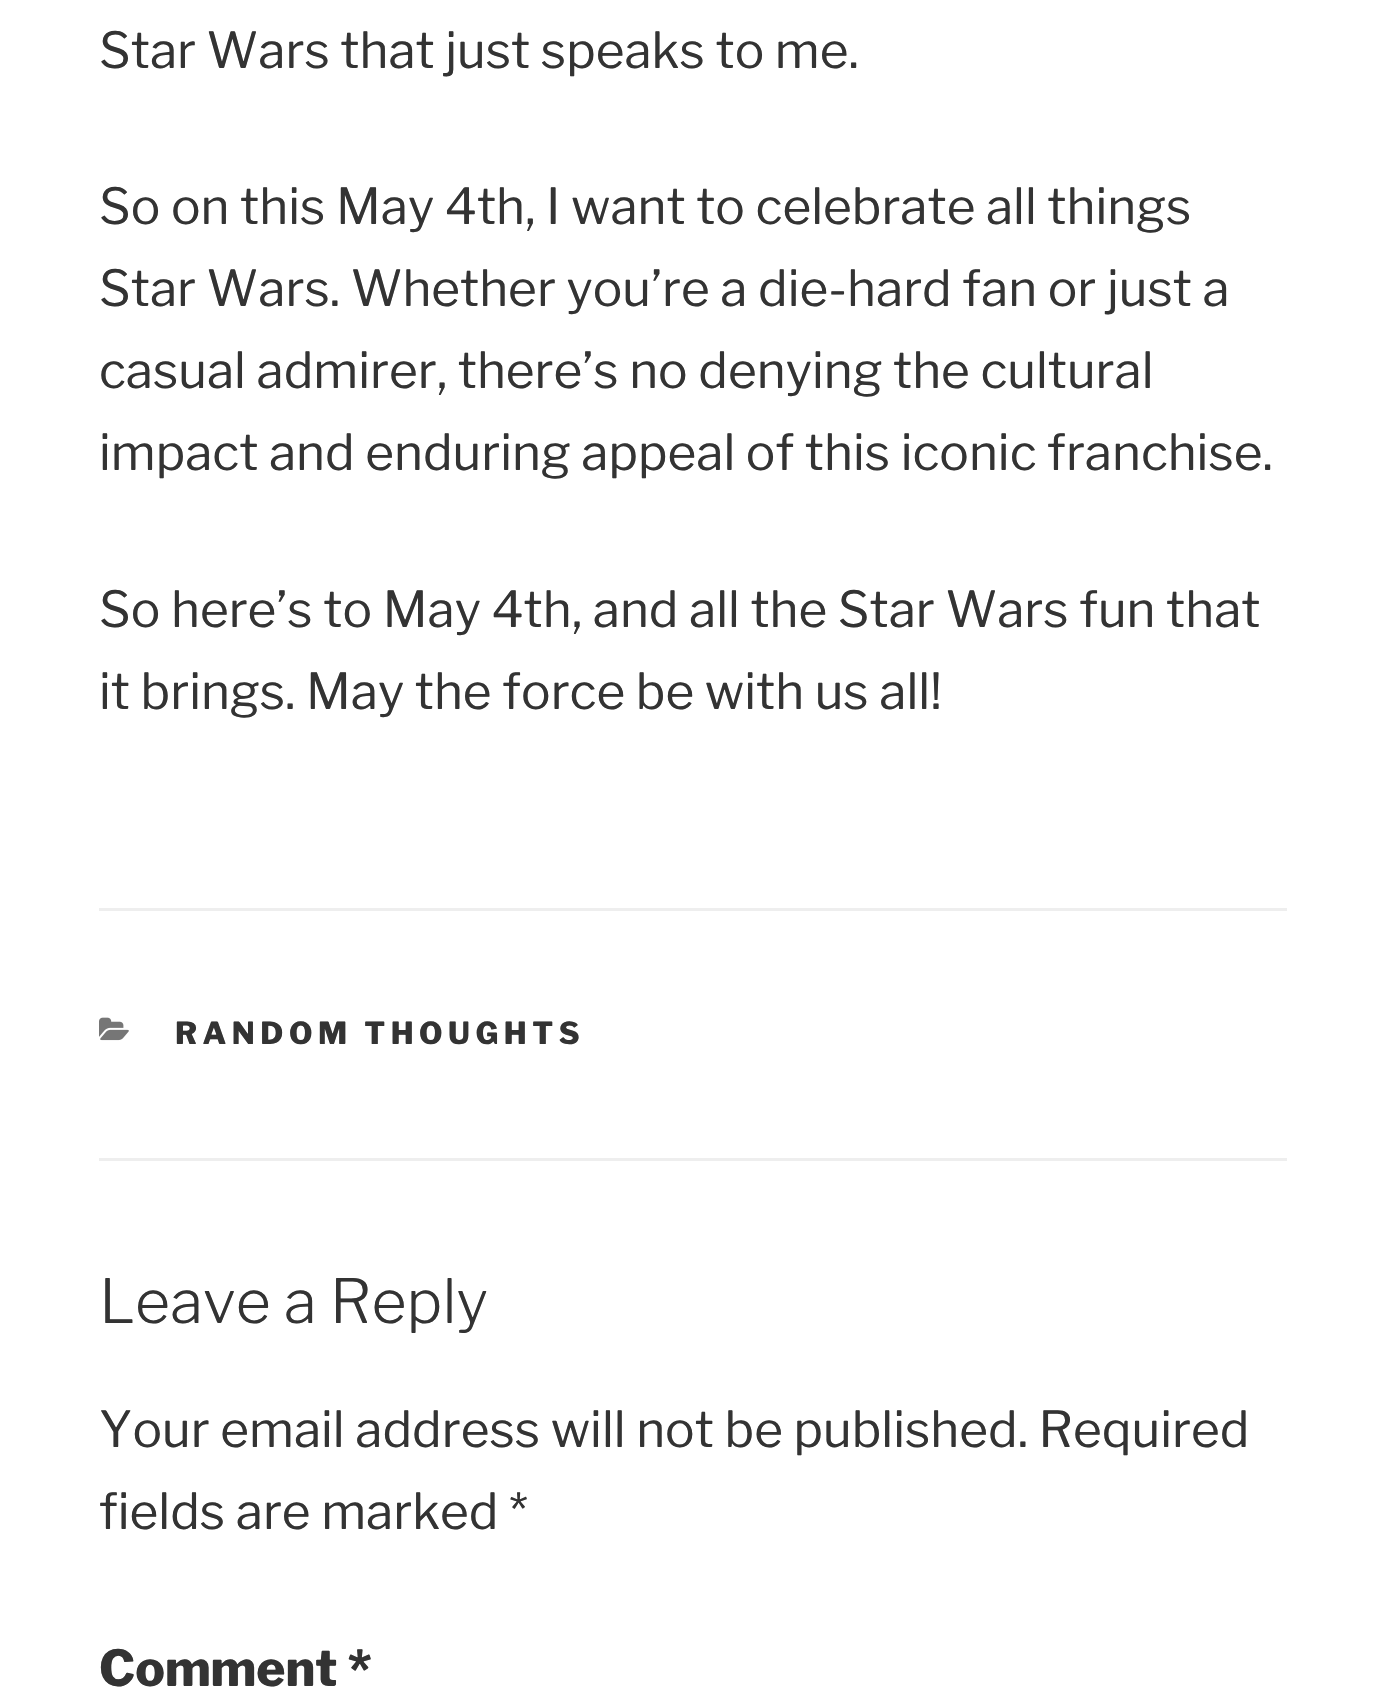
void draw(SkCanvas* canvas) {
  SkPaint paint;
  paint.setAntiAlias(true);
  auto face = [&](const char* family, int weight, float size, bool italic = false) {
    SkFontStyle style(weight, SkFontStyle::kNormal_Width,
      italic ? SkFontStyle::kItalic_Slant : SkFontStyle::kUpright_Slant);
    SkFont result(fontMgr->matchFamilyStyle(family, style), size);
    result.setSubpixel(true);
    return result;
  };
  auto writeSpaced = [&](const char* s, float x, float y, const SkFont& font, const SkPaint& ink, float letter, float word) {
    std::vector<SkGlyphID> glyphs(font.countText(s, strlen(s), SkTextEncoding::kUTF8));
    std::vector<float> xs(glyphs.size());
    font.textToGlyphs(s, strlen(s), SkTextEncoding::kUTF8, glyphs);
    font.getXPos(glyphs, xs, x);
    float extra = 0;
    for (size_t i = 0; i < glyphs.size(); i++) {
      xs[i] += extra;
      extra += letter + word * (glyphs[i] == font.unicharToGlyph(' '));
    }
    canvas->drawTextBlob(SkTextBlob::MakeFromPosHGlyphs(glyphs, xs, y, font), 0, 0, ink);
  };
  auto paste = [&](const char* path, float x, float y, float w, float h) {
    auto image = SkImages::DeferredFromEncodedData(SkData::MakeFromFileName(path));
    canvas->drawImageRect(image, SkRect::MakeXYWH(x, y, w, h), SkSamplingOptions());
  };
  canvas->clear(0xffffffff);
  paint.setColor(0xffeeeeee);
  canvas->drawRect(SkRect::MakeXYWH(99, 908, 1188, 3), paint);
  canvas->drawRect(SkRect::MakeXYWH(99, 1158, 1188, 3), paint);
  paste("img/1.png", 99, 1017, 30, 24);
  auto f0 = face("Libre Franklin", 400, 49.5f);
  paint.setColor(0xff333333);
  {
    const struct { const char* s; float x, y; } items[] = {
      {"Star Wars that just speaks to me.", 99, 68},
      {"So on this May 4th, I want to celebrate all things", 99, 224},
      {"Star Wars. Whether you’re a die-hard fan or just a", 99, 306},
      {"casual admirer, there’s no denying the cultural", 99, 388},
      {"impact and enduring appeal of this iconic franchise.", 99, 470},
      {"So here’s to May 4th, and all the Star Wars fun that", 99, 627},
      {"it brings. May the force be with us all!", 99, 709},
    };
    for (auto [s, x, y] : items) {
      canvas->drawString(s, x, y, f0, paint);
    }
  }
  auto f1 = face("Libre Franklin", 800, 30.25f);
  writeSpaced("RANDOM THOUGHTS", 175, 1044, f1, paint, 5.5f, 0);
  auto f2 = face("Libre Franklin", 300, 60.5f);
  canvas->drawString("Leave a Reply", 99, 1323, f2, paint);
  canvas->drawString("Your email address will not be published. Required", 99, 1447, f0, paint);
  canvas->drawString("fields are marked *", 99, 1529, f0, paint);
  auto f3 = face("Libre Franklin", 800, 49.5f);
  canvas->drawString("Comment *", 99, 1686, f3, paint);
}
